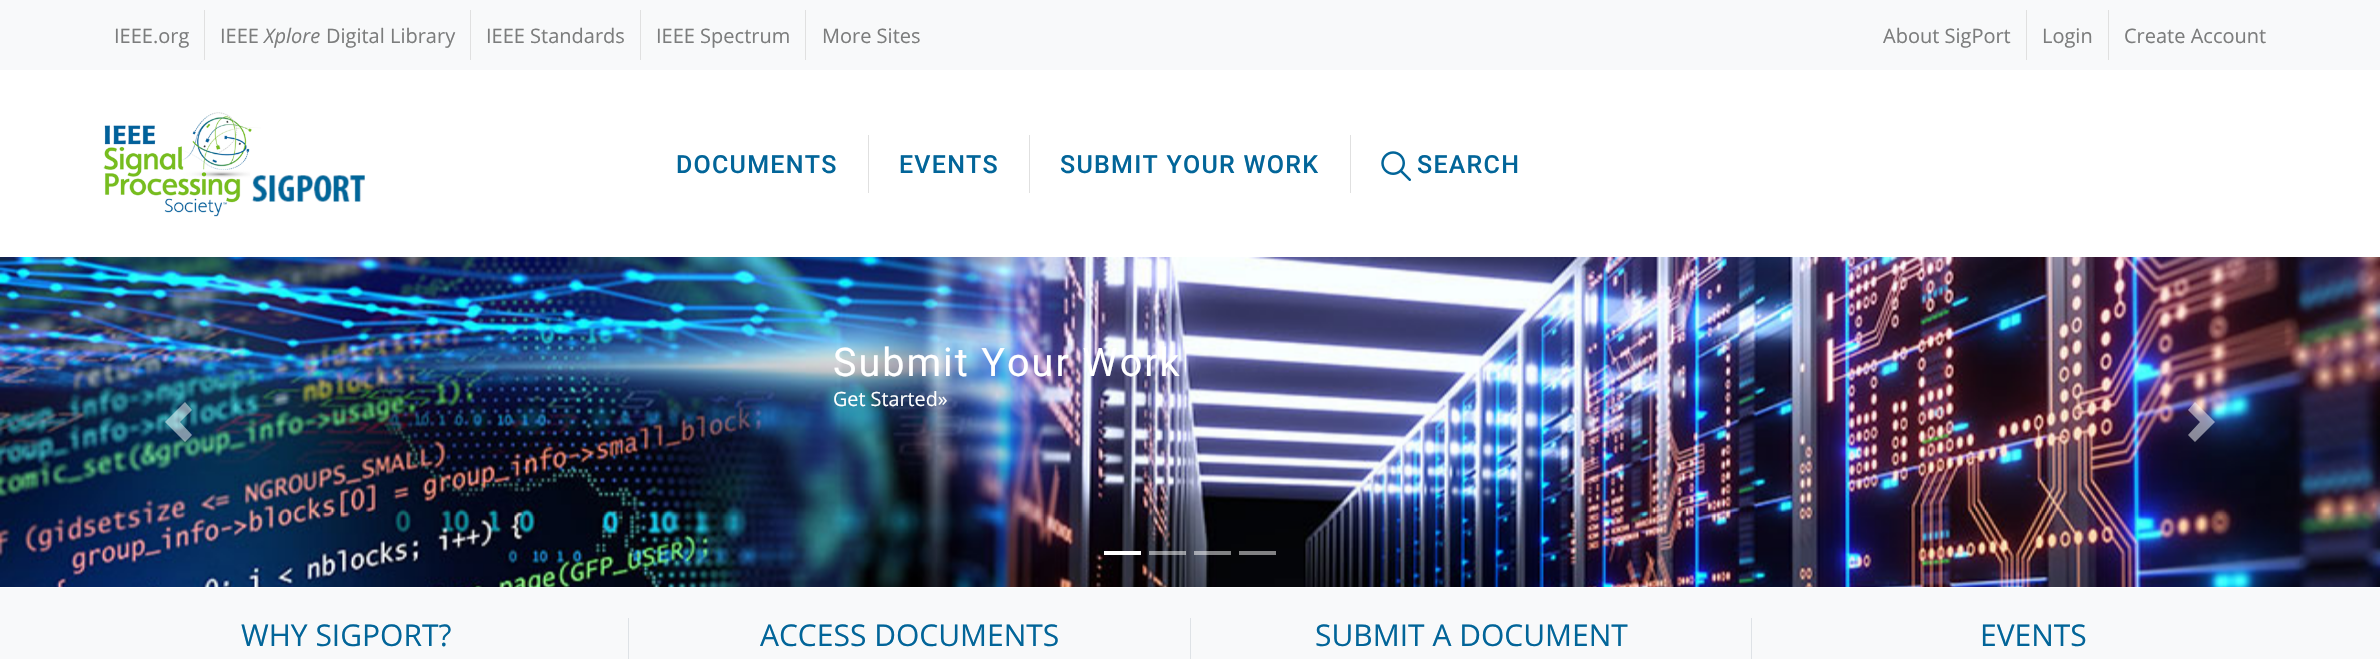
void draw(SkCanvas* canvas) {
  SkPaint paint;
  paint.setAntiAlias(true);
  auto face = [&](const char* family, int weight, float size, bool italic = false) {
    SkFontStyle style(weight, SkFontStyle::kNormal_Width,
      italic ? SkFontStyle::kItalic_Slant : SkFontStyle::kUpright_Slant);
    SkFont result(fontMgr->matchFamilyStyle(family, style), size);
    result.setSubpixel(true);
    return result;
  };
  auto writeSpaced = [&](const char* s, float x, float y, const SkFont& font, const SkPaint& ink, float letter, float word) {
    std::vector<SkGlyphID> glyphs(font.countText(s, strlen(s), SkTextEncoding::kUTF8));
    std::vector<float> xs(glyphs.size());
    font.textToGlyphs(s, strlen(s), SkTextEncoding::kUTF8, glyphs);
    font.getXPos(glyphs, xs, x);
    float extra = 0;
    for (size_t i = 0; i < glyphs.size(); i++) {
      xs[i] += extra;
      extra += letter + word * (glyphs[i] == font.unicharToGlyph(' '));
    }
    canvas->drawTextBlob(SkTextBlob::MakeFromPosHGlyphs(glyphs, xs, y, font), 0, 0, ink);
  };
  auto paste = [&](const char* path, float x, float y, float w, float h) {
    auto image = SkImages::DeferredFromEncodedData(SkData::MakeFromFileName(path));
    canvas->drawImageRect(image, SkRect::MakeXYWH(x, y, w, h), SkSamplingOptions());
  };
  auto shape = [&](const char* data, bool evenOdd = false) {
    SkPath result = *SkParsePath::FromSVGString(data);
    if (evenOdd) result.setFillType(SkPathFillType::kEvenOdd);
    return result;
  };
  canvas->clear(0xffffffff);
  {
    const struct { float x, y, w, h; SkColor color; } items[] = {
      {0, 0, 2380, 70, 0xfff8f9fa},
      {204, 10, 1, 50, 0xffe0e0e0},
      {470, 10, 1, 50, 0xffe0e0e0},
      {640, 10, 1, 50, 0xffe0e0e0},
      {805, 10, 1, 50, 0xffe0e0e0},
      {2026, 10, 1, 50, 0xffe0e0e0},
      {2108, 10, 1, 50, 0xffe0e0e0},
    };
    for (auto [x, y, w, h, color] : items) {
      paint.setColor(color);
      canvas->drawRect(SkRect::MakeXYWH(x, y, w, h), paint);
    }
  }
  paste("img/1.png", 103, 112, 262, 105);
  {
    const struct { float x, y, w, h; SkColor color; } items[] = {
      {868, 135, 1, 58, 0xffe0e0e0},
      {1029, 135, 1, 58, 0xffe0e0e0},
      {1350, 135, 1, 58, 0xffe0e0e0},
    };
    for (auto [x, y, w, h, color] : items) {
      paint.setColor(color);
      canvas->drawRect(SkRect::MakeXYWH(x, y, w, h), paint);
    }
  }
  paste("img/2.png", 1381, 151, 30, 30);
  paste("img/3.png", 0, 257, 2380, 330);
  paint.setColor(0x80ffffff);
  canvas->drawPath(shape("M185 402L165 422L185 442L192 435L180 422L192 410Z"), paint);
  canvas->drawPath(shape("M2195 402L2188 410L2200 422L2188 435L2195 442L2215 422Z"), paint);
  {
    const struct { float x, y, w, h; SkColor color; } items[] = {
      {1104, 551, 37, 4, 0xffffffff},
      {1149, 551, 37, 4, 0x80ffffff},
      {1194, 551, 37, 4, 0x80ffffff},
      {1239, 551, 37, 4, 0xff828284},
      {0, 588, 2380, 71, 0xfff8f9fa},
      {628, 618, 1, 41, 0xffdee2e6},
      {1751, 618, 1, 41, 0xffdee2e6},
      {1190, 618, 1, 41, 0xffdee2e6},
    };
    for (auto [x, y, w, h, color] : items) {
      paint.setColor(color);
      canvas->drawRect(SkRect::MakeXYWH(x, y, w, h), paint);
    }
  }
  auto f0 = face("Open Sans", 400, 20);
  paint.setColor(0xff7c7d7d);
  canvas->drawString("IEEE.org", 114, 43, f0, paint);
  canvas->drawString("IEEE", 220, 43, f0, paint);
  auto f1 = face("Open Sans", 400, 20, true);
  canvas->drawString("Xplore", 264, 43, f1, paint);
  {
    const struct { const char* s; float x, y; } items[] = {
      {"Digital Library", 326, 43},
      {"IEEE Standards", 486, 43},
      {"IEEE Spectrum", 656, 43},
      {"More Sites", 822, 43},
      {"About SigPort", 1883, 43},
      {"Login", 2042, 43},
      {"Create Account", 2124, 43},
    };
    for (auto [s, x, y] : items) {
      canvas->drawString(s, x, y, f0, paint);
    }
  }
  auto f2 = face("Roboto", 500, 25);
  paint.setColor(0xff026599);
  {
    const struct { const char* s; float x, y; } items[] = {
      {"DOCUMENTS", 676, 173},
      {"EVENTS", 899, 173},
      {"SUBMIT YOUR WORK", 1060, 173},
      {"SEARCH", 1417, 173},
    };
    for (auto [s, x, y] : items) {
      writeSpaced(s, x, y, f2, paint, 1.25f, 0);
    }
  }
  auto f3 = face("Roboto", 400, 39.5f);
  paint.setColor(0xffffffff);
  writeSpaced("Submit Your Work", 833, 376, f3, paint, 2, 0);
  auto f4 = face("Open Sans", 400, 19.75f);
  canvas->drawString("Get Started»", 833, 406, f4, paint);
  auto f5 = face("Open Sans", 400, 30);
  paint.setColor(0xff026599);
  {
    const struct { const char* s; float x, y; } items[] = {
      {"WHY SIGPORT?", 241, 646},
      {"ACCESS DOCUMENTS", 760, 646},
      {"SUBMIT A DOCUMENT", 1315, 646},
      {"EVENTS", 1980, 646},
    };
    for (auto [s, x, y] : items) {
      canvas->drawString(s, x, y, f5, paint);
    }
  }
}
